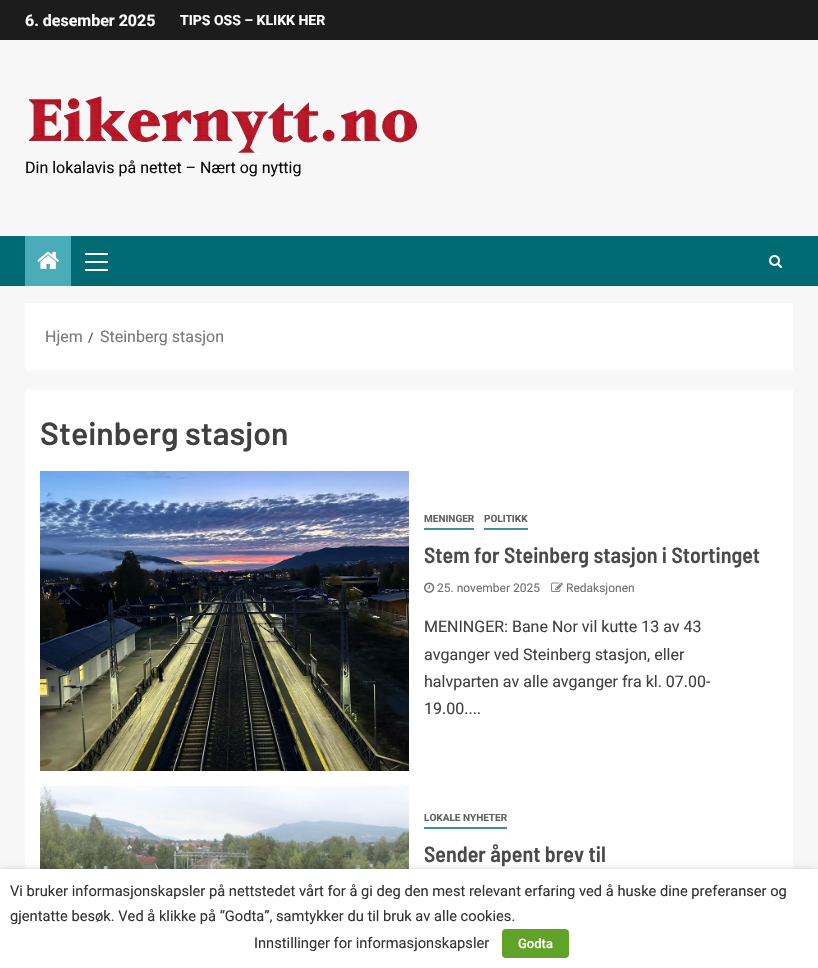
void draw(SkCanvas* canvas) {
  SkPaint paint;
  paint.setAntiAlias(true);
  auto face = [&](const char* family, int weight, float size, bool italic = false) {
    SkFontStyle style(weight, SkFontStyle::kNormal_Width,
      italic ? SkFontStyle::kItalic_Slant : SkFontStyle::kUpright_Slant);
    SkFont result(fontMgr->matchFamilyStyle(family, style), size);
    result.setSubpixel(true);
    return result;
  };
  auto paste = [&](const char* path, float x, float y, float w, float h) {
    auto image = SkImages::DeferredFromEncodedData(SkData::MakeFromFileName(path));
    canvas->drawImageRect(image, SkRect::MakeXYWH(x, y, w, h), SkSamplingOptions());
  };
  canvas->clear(0xfff7f7f7);
  paint.setColor(0xff1c1c1c);
  canvas->drawRect(SkRect::MakeXYWH(0, 0, 818, 40), paint);
  paste("img/1.png", 29, 96, 388, 58);
  paint.setColor(0xff006b73);
  canvas->drawRect(SkRect::MakeXYWH(0, 236, 818, 50), paint);
  paint.setColor(0xff4aabb9);
  canvas->drawRect(SkRect::MakeXYWH(25, 236, 46, 50), paint);
  paste("img/2.png", 37, 251, 22, 18);
  {
    const struct { float x, y, w, h; SkColor color; } items[] = {
      {85, 261, 23, 2, 0xffffffff},
      {85, 253, 23, 2, 0xffffffff},
      {85, 269, 23, 2, 0xffffffff},
    };
    for (auto [x, y, w, h, color] : items) {
      paint.setColor(color);
      canvas->drawRect(SkRect::MakeXYWH(x, y, w, h), paint);
    }
  }
  paste("img/3.png", 769, 255, 13, 13);
  canvas->drawRect(SkRect::MakeXYWH(25, 303, 768, 67), paint);
  canvas->drawRect(SkRect::MakeXYWH(25, 390, 768, 479), paint);
  paste("img/4.png", 40, 471, 369, 300);
  paint.setColor(0xff409096);
  canvas->drawRect(SkRect::MakeXYWH(424, 528, 50, 2), paint);
  canvas->drawRect(SkRect::MakeXYWH(484, 528, 44, 2), paint);
  paste("img/5.png", 424, 582, 11, 11);
  paste("img/6.png", 551, 582, 12, 10);
  paste("img/7.png", 40, 786, 369, 83);
  canvas->drawRect(SkRect::MakeXYWH(424, 827, 83, 2), paint);
  paint.setColor(0x80000000);
  paint.setMaskFilter(SkMaskFilter::MakeBlur(kNormal_SkBlurStyle, 5));
  canvas->drawRect(SkRect::MakeXYWH(0, 874, 818, 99), paint);
  paint.setMaskFilter(nullptr);
  paint.setColor(0xffffffff);
  canvas->drawRect(SkRect::MakeXYWH(0, 869, 818, 99), paint);
  paint.setColor(0xff61a229);
  canvas->drawRoundRect(SkRect::MakeXYWH(502, 929, 67, 29), 4, 4, paint);
  auto f0 = face("Roboto", 700, 16);
  paint.setColor(0xffffffff);
  canvas->drawString("6. desember 2025", 25, 26, f0, paint);
  auto f1 = face("Roboto", 700, 14);
  canvas->drawString("TIPS OSS – KLIKK HER", 180, 25, f1, paint);
  auto f2 = face("Roboto", 400, 16);
  paint.setColor(0xff0a0a0a);
  canvas->drawString("Din lokalavis på nettet – Nært og nyttig", 25, 173, f2, paint);
  paint.setColor(0xff797979);
  canvas->drawString("Hjem", 45, 342, f2, paint);
  auto f3 = face("Roboto", 400, 13);
  paint.setColor(0xff393e46);
  canvas->drawString("/", 88, 342, f3, paint);
  paint.setColor(0xff797979);
  canvas->drawString("Steinberg stasjon", 100, 342, f2, paint);
  auto f4 = face("Barlow", 600, 32);
  paint.setColor(0xff404040);
  canvas->drawString("Steinberg stasjon", 40, 445, f4, paint);
  auto f5 = face("Roboto", 700, 10);
  paint.setColor(0xff606060);
  canvas->drawString("MENINGER", 424, 522, f5, paint);
  canvas->drawString("POLITIKK", 484, 522, f5, paint);
  auto f6 = face("Barlow Semi Condensed", 600, 22);
  paint.setColor(0xff4a4a4a);
  canvas->drawString("Stem for Steinberg stasjon i Stortinget", 424, 563, f6, paint);
  auto f7 = face("Roboto", 400, 12);
  paint.setColor(0xff707070);
  canvas->drawString("25. november 2025", 437, 592, f7, paint);
  canvas->drawString("Redaksjonen", 566, 592, f7, paint);
  paint.setColor(0xff404040);
  {
    const struct { const char* s; float x, y; } items[] = {
      {"MENINGER: Bane Nor vil kutte 13 av 43", 424, 632},
      {"avganger ved Steinberg stasjon, eller", 424, 660},
      {"halvparten av alle avganger fra kl. 07.00-", 424, 687},
      {"19.00....", 424, 714},
    };
    for (auto [s, x, y] : items) {
      canvas->drawString(s, x, y, f2, paint);
    }
  }
  paint.setColor(0xff606060);
  canvas->drawString("LOKALE NYHETER", 424, 821, f5, paint);
  paint.setColor(0xff4a4a4a);
  canvas->drawString("Sender åpent brev til", 424, 862, f6, paint);
  auto f8 = face("Roboto", 400, 14.67f);
  paint.setColor(0xff333333);
  {
    const struct { const char* s; float x, y; } items[] = {
      {"Vi bruker informasjonskapsler på nettstedet vårt for å gi deg den mest relevant erfaring ved å huske dine preferanser og", 10, 896},
      {"gjentatte besøk. Ved å klikke på “Godta”, samtykker du til bruk av alle cookies.", 10, 921},
      {"Innstillinger for informasjonskapsler", 254, 948},
    };
    for (auto [s, x, y] : items) {
      canvas->drawString(s, x, y, f8, paint);
    }
  }
  auto f9 = face("Roboto", 500, 13);
  paint.setColor(0xffffffff);
  canvas->drawString("Godta", 518, 948, f9, paint);
}
